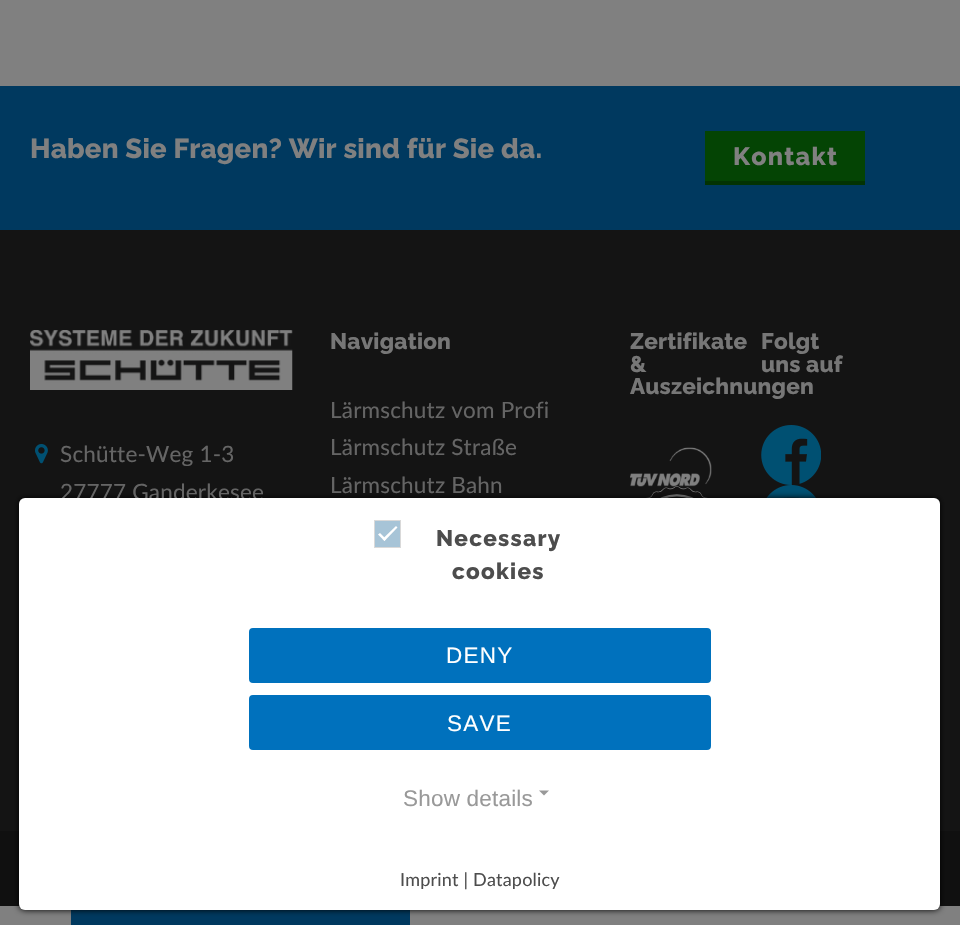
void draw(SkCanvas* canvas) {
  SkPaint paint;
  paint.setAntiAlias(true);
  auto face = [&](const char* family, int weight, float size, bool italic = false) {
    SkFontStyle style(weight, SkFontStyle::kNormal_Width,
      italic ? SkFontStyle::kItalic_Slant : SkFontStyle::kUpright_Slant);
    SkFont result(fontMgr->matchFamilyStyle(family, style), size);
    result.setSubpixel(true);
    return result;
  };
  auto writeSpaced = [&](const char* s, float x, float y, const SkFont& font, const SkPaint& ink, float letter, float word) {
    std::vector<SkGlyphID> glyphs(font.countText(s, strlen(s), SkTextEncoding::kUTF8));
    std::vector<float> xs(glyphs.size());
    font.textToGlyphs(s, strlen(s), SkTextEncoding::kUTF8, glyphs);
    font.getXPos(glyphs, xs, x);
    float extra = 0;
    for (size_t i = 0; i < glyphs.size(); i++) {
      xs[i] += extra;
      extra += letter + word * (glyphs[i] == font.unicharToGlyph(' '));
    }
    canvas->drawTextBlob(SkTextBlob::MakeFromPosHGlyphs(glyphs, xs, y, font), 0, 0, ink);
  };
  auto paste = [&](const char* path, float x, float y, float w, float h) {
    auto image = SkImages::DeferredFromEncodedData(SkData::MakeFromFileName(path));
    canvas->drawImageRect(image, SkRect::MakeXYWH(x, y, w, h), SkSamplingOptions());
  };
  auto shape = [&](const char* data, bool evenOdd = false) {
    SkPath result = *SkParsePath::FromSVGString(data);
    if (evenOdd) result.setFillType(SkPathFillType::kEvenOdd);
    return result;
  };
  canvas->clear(0xff808080);
  {
    const struct { float x, y, w, h; SkColor color; } items[] = {
      {0, 86, 960, 144, 0xff00395f},
      {705, 131, 160, 50, 0xff044404},
      {705, 181, 160, 4, 0xff033303},
      {0, 230, 960, 601, 0xff141414},
    };
    for (auto [x, y, w, h, color] : items) {
      paint.setColor(color);
      canvas->drawRect(SkRect::MakeXYWH(x, y, w, h), paint);
    }
  }
  paste("img/1.png", 630, 447, 82, 40);
  paste("img/2.png", 646, 486, 62, 12);
  paste("img/3.png", 761, 425, 60, 60);
  paste("img/4.png", 766, 485, 50, 13);
  paste("img/5.png", 30, 330, 263, 60);
  paste("img/6.png", 35, 444, 13, 20);
  paint.setColor(0xff101010);
  canvas->drawRect(SkRect::MakeXYWH(0, 831, 960, 75), paint);
  paint.setColor(0xff00395f);
  canvas->drawRect(SkRect::MakeXYWH(71, 910, 339, 15), paint);
  paint.setStroke(true);
  paint.setStrokeWidth(1);
  paint.setColor(0xff808080);
  canvas->drawRect(SkRect::MakeXYWH(70.5f, 903.5f, 340, 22), paint);
  paint.setStroke(false);
  paint.setColor(0xff000000);
  paint.setMaskFilter(SkMaskFilter::MakeBlur(kNormal_SkBlurStyle, 3));
  canvas->drawRoundRect(SkRect::MakeXYWH(19, 498, 921, 412), 6, 6, paint);
  paint.setMaskFilter(nullptr);
  auto f0 = face("Raleway", 100, 27.5f);
  paint.setColor(0xff808080);
  writeSpaced("Haben Sie Fragen? Wir sind für Sie da.", 30, 158, f0, paint, 0.2f, 0);
  auto f1 = face("Raleway", 100, 25);
  writeSpaced("Kontakt", 733, 165, f1, paint, 1.25f, 0);
  auto f2 = face("Raleway", 100, 22.5f);
  paint.setColor(0xff777777);
  writeSpaced("Navigation", 330, 349, f2, paint, 0.2f, 0);
  auto f3 = face("Lato", 400, 22.5f);
  paint.setColor(0xff656565);
  {
    const struct { const char* s; float x, y; } items[] = {
      {"Lärmschutz vom Profi", 330, 418},
      {"Lärmschutz Straße", 330, 455},
      {"Lärmschutz Bahn", 330, 493},
    };
    for (auto [s, x, y] : items) {
      writeSpaced(s, x, y, f3, paint, 0.2f, 0);
    }
  }
  paint.setColor(0xff777777);
  {
    const struct { const char* s; float x, y; } items[] = {
      {"Zertifikate", 630, 349},
      {"&", 630, 372},
      {"Auszeichnungen", 630, 394},
      {"Folgt", 761, 349},
      {"uns auf", 761, 372},
    };
    for (auto [s, x, y] : items) {
      writeSpaced(s, x, y, f2, paint, 0.2f, 0);
    }
  }
  paint.setColor(0xff656565);
  writeSpaced("Schütte-Weg 1-3", 60, 462, f3, paint, 0.2f, 0);
  writeSpaced("27777 Ganderkesee", 60, 500, f3, paint, 0.2f, 0);
  paint.setColor(0xffffffff);
  canvas->drawRoundRect(SkRect::MakeXYWH(19, 498, 921, 412), 6, 6, paint);
  paint.setColor(0xffa7c4d7);
  canvas->drawRect(SkRect::MakeXYWH(374.5f, 520.5f, 26, 27), paint);
  paint.setStroke(true);
  paint.setColor(0xffd9d9d9);
  canvas->drawRect(SkRect::MakeXYWH(374.5f, 520.5f, 26, 27), paint);
  paint.setStroke(false);
  paint.setColor(0xffffffff);
  canvas->drawPath(shape("M396 526L397.5 527.5L384.5 541L382.5 539Z"), paint);
  canvas->drawPath(shape("M380 533L386 539L384.5 541L378 534.5Z"), paint);
  paint.setColor(0xff4d4d4d);
  writeSpaced("Necessary", 436, 546, f2, paint, 1.25f, 0);
  writeSpaced("cookies", 452, 579, f2, paint, 1.25f, 0);
  paint.setColor(0xff0071bd);
  canvas->drawRoundRect(SkRect::MakeXYWH(250.5f, 629.5f, 459, 52), 2.5f, 2.5f, paint);
  paint.setStroke(true);
  paint.setStrokeWidth(3);
  canvas->drawRoundRect(SkRect::MakeXYWH(250.5f, 629.5f, 459, 52), 2.5f, 2.5f, paint);
  auto f4 = face("Liberation Sans", 400, 22.5f);
  paint.setStroke(false);
  paint.setColor(0xffffffff);
  writeSpaced("DENY", 446, 663, f4, paint, 1.25f, 0);
  paint.setColor(0xff0071bd);
  canvas->drawRoundRect(SkRect::MakeXYWH(250.5f, 696.5f, 459, 52), 2.5f, 2.5f, paint);
  paint.setStroke(true);
  canvas->drawRoundRect(SkRect::MakeXYWH(250.5f, 696.5f, 459, 52), 2.5f, 2.5f, paint);
  paint.setStroke(false);
  paint.setColor(0xffffffff);
  writeSpaced("SAVE", 447, 731, f4, paint, 1.25f, 0);
  paint.setColor(0xff999999);
  writeSpaced("Show details", 403, 806, f4, paint, 0.2f, 0);
  canvas->drawPath(shape("M539 790.5H549L544 795.5Z"), paint);
  auto f5 = face("Lato", 400, 18);
  paint.setColor(0xff4d4d4d);
  writeSpaced("Imprint | Datapolicy", 400, 886, f5, paint, 0.2f, 0);
}
